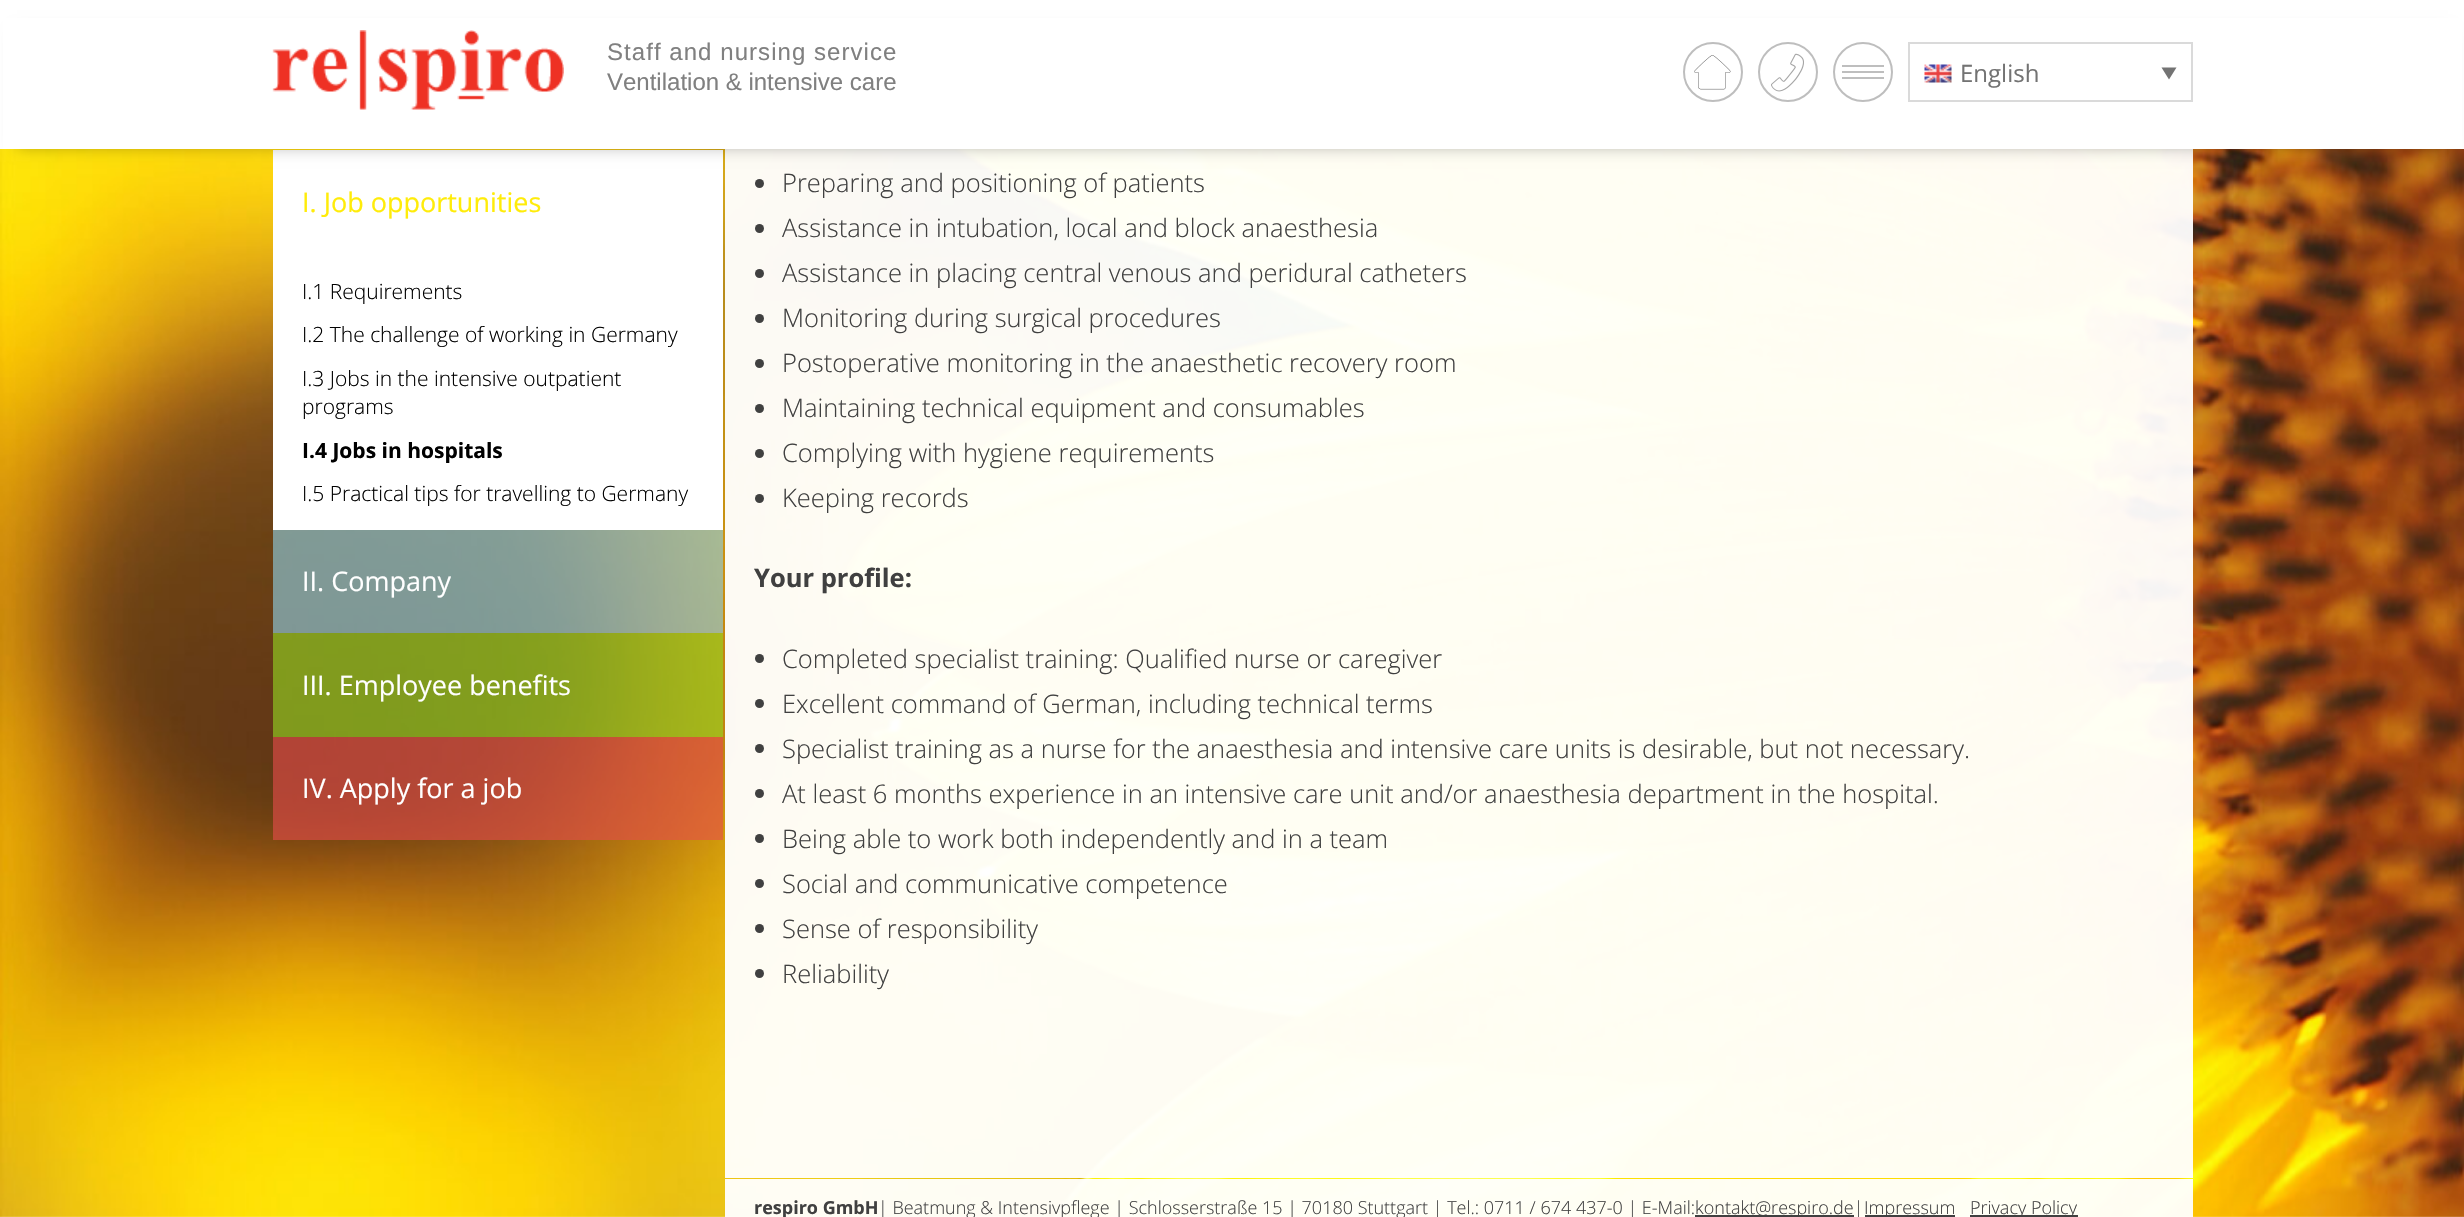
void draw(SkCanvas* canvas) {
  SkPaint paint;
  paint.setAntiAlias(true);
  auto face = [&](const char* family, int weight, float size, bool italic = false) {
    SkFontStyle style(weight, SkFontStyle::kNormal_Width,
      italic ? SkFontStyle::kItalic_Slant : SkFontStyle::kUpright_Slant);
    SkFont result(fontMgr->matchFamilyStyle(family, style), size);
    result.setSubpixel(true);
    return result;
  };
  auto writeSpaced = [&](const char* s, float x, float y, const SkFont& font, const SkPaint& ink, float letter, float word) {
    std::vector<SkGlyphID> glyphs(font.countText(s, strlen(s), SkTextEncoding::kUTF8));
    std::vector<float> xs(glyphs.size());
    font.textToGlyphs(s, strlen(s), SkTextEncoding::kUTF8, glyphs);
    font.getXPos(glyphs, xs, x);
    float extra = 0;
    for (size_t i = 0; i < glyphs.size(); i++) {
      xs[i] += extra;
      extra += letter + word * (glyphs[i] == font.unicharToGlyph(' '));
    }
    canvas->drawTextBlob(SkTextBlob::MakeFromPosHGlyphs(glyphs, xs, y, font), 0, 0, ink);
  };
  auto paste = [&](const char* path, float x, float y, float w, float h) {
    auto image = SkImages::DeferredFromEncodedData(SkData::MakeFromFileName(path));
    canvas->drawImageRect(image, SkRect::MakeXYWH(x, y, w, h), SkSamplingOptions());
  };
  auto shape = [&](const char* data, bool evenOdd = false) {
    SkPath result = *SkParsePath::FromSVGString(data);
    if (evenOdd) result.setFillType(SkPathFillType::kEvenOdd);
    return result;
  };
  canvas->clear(0xffffffff);
  paste("img/5.png", 0, 149, 2464, 1068);
  paint.setColor(0xffffffff);
  canvas->drawRect(SkRect::MakeXYWH(273, 150, 450, 380), paint);
  paint.setColor(0xf2ffffff);
  canvas->drawRect(SkRect::MakeXYWH(725, 149, 1468, 1029), paint);
  paint.setColor(0x4d000000);
  paint.setMaskFilter(SkMaskFilter::MakeBlur(kNormal_SkBlurStyle, 7.5f));
  canvas->drawRect(SkRect::MakeXYWH(17, 32, 2431, 115), paint);
  paint.setMaskFilter(nullptr);
  paint.setColor(0xffffffff);
  canvas->drawRect(SkRect::MakeXYWH(3, 18, 2459, 131), paint);
  paste("img/1.png", 272, 30, 292, 80);
  paste("img/2.png", 1694, 55, 37, 35);
  paint.setStroke(true);
  paint.setStrokeWidth(2);
  paint.setColor(0xffbebebe);
  canvas->drawCircle(1713, 72, 29, paint);
  paste("img/3.png", 1771, 53, 33, 39);
  canvas->drawCircle(1788, 72, 29, paint);
  canvas->drawCircle(1863, 72, 29, paint);
  paint.setStroke(false);
  {
    const struct { float x, y, w, h; SkColor color; } items[] = {
      {1842, 65, 42, 2, 0xffbebebe},
      {1842, 71, 42, 2, 0xffbebebe},
      {1842, 77, 42, 2, 0xffbebebe},
    };
    for (auto [x, y, w, h, color] : items) {
      paint.setColor(color);
      canvas->drawRect(SkRect::MakeXYWH(x, y, w, h), paint);
    }
  }
  paint.setStroke(true);
  paint.setColor(0xffdadada);
  canvas->drawRect(SkRect::MakeXYWH(1909, 43, 283, 58), paint);
  paste("img/4.png", 1924, 64, 28, 19);
  paint.setStroke(false);
  paint.setColor(0xff737373);
  canvas->drawPath(shape("M2161.5 67.5H2176.5L2169 79.5Z"), paint);
  {
    const struct { float x, y, w, h; SkColor color; } items[] = {
      {273, 530, 450, 103, 0x998fd4e9},
      {273, 633, 450, 104, 0x9995db21},
      {273, 737, 450, 103, 0x99e84b4b},
    };
    for (auto [x, y, w, h, color] : items) {
      paint.setColor(color);
      canvas->drawRect(SkRect::MakeXYWH(x, y, w, h), paint);
    }
  }
  paint.setColor(0xff404040);
  canvas->drawCircle(759.5f, 183.5f, 4.5f, paint);
  canvas->drawCircle(759.5f, 228.5f, 4.5f, paint);
  canvas->drawCircle(759.5f, 273.5f, 4.5f, paint);
  canvas->drawCircle(759.5f, 318.5f, 4.5f, paint);
  canvas->drawCircle(759.5f, 363.5f, 4.5f, paint);
  canvas->drawCircle(759.5f, 408.5f, 4.5f, paint);
  canvas->drawCircle(759.5f, 453.5f, 4.5f, paint);
  canvas->drawCircle(759.5f, 498.5f, 4.5f, paint);
  canvas->drawCircle(759.5f, 658.5f, 4.5f, paint);
  canvas->drawCircle(759.5f, 703.5f, 4.5f, paint);
  canvas->drawCircle(759.5f, 748.5f, 4.5f, paint);
  canvas->drawCircle(759.5f, 793.5f, 4.5f, paint);
  canvas->drawCircle(759.5f, 838.5f, 4.5f, paint);
  canvas->drawCircle(759.5f, 883.5f, 4.5f, paint);
  canvas->drawCircle(759.5f, 928.5f, 4.5f, paint);
  canvas->drawCircle(759.5f, 973.5f, 4.5f, paint);
  {
    const struct { float x, y, w, h; SkColor color; } items[] = {
      {725, 1179, 1468, 38, 0xf2ffffff},
      {1695, 1215, 159, 2, 0xff404040},
      {1865, 1215, 90, 2, 0xff404040},
      {1970, 1215, 108, 2, 0xff404040},
    };
    for (auto [x, y, w, h, color] : items) {
      paint.setColor(color);
      canvas->drawRect(SkRect::MakeXYWH(x, y, w, h), paint);
    }
  }
  auto f0 = face("Liberation Sans", 400, 24);
  paint.setColor(0xff808080);
  writeSpaced("Staff and nursing service", 607, 60, f0, paint, 1.05f, 0);
  canvas->drawString("Ventilation & intensive care", 607, 90, f0, paint);
  auto f1 = face("Open Sans", 400, 24);
  paint.setColor(0xff737373);
  canvas->drawString("English", 1960, 82, f1, paint);
  auto f2 = face("Open Sans", 400, 27);
  paint.setColor(0xffffec09);
  canvas->drawString("I. Job opportunities", 302, 212, f2, paint);
  auto f3 = face("Open Sans", 300, 21);
  paint.setColor(0xff000000);
  {
    const struct { const char* s; float x, y; } items[] = {
      {"I.1 Requirements", 302, 299},
      {"I.2 The challenge of working in Germany", 302, 342},
      {"I.3 Jobs in the intensive outpatient", 302, 386},
      {"programs", 302, 414},
    };
    for (auto [s, x, y] : items) {
      canvas->drawString(s, x, y, f3, paint);
    }
  }
  auto f4 = face("Open Sans", 700, 21);
  canvas->drawString("I.4 Jobs in hospitals", 302, 458, f4, paint);
  canvas->drawString("I.5 Practical tips for travelling to Germany", 302, 501, f3, paint);
  paint.setColor(0xffffffff);
  {
    const struct { const char* s; float x, y; } items[] = {
      {"II. Company", 302, 591},
      {"III. Employee benefits", 302, 695},
      {"IV. Apply for a job", 302, 798},
    };
    for (auto [s, x, y] : items) {
      canvas->drawString(s, x, y, f2, paint);
    }
  }
  auto f5 = face("Open Sans", 300, 25.5f);
  paint.setColor(0xff404040);
  {
    const struct { const char* s; float x, y; } items[] = {
      {"Preparing and positioning of patients", 782, 192},
      {"Assistance in intubation, local and block anaesthesia", 782, 237},
      {"Assistance in placing central venous and peridural catheters", 782, 282},
      {"Monitoring during surgical procedures", 782, 327},
      {"Postoperative monitoring in the anaesthetic recovery room", 782, 372},
      {"Maintaining technical equipment and consumables", 782, 417},
      {"Complying with hygiene requirements", 782, 462},
      {"Keeping records", 782, 507},
    };
    for (auto [s, x, y] : items) {
      canvas->drawString(s, x, y, f5, paint);
    }
  }
  auto f6 = face("Open Sans", 700, 25.5f);
  canvas->drawString("Your profile:", 754, 587, f6, paint);
  {
    const struct { const char* s; float x, y; } items[] = {
      {"Completed specialist training: Qualified nurse or caregiver", 782, 668},
      {"Excellent command of German, including technical terms", 782, 713},
      {"Specialist training as a nurse for the anaesthesia and intensive care units is desirable, but not necessary.", 782, 758},
      {"At least 6 months experience in an intensive care unit and/or anaesthesia department in the hospital.", 782, 803},
      {"Being able to work both independently and in a team", 782, 848},
      {"Social and communicative competence", 782, 893},
      {"Sense of responsibility", 782, 938},
      {"Reliability", 782, 983},
    };
    for (auto [s, x, y] : items) {
      canvas->drawString(s, x, y, f5, paint);
    }
  }
  auto f7 = face("Open Sans", 700, 18);
  canvas->drawString("respiro GmbH", 754, 1214, f7, paint);
  auto f8 = face("Open Sans", 300, 18);
  {
    const struct { const char* s; float x, y; } items[] = {
      {"| Beatmung & Intensivpflege | Schlosserstraße 15 | 70180 Stuttgart | Tel.: 0711 / 674 437-0 | E-Mail:", 878, 1214},
      {"kontakt@respiro.de|", 1695, 1214},
      {"Impressum", 1864, 1214},
      {"Privacy Policy", 1970, 1214},
    };
    for (auto [s, x, y] : items) {
      canvas->drawString(s, x, y, f8, paint);
    }
  }
}
